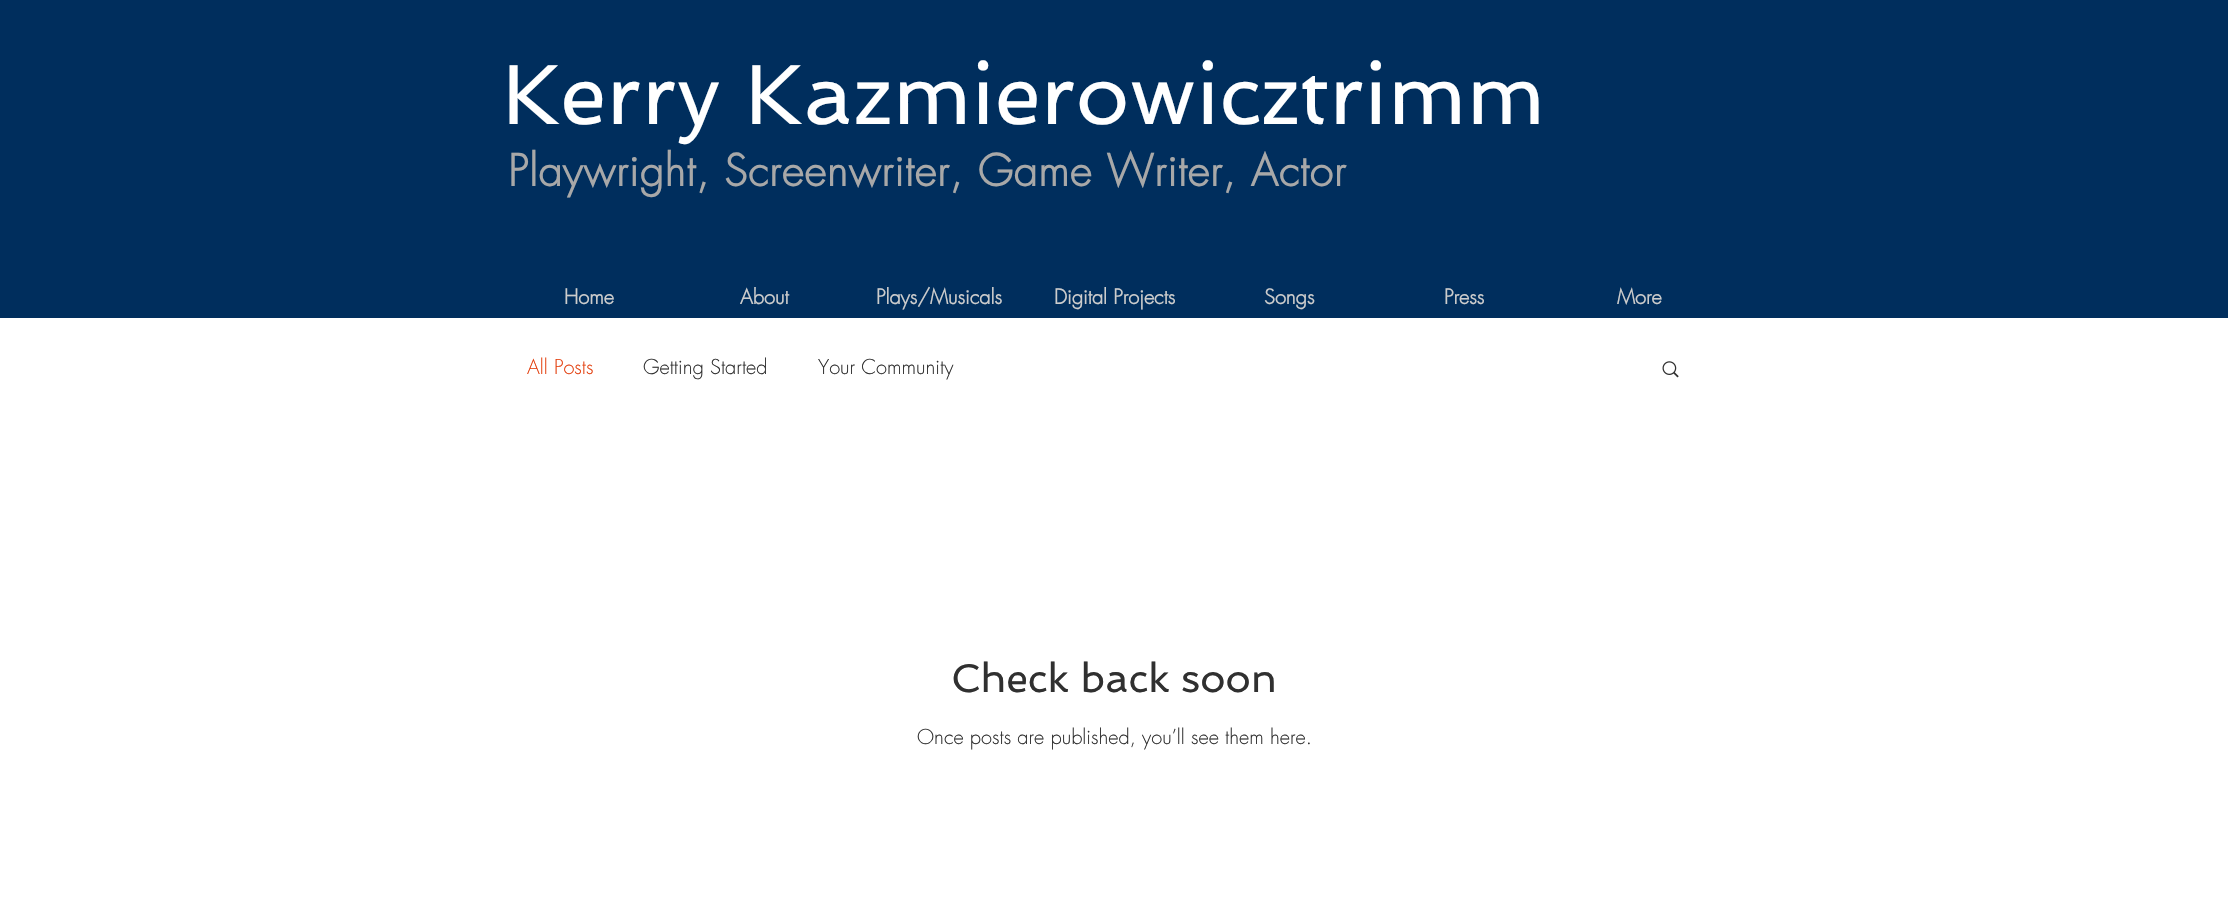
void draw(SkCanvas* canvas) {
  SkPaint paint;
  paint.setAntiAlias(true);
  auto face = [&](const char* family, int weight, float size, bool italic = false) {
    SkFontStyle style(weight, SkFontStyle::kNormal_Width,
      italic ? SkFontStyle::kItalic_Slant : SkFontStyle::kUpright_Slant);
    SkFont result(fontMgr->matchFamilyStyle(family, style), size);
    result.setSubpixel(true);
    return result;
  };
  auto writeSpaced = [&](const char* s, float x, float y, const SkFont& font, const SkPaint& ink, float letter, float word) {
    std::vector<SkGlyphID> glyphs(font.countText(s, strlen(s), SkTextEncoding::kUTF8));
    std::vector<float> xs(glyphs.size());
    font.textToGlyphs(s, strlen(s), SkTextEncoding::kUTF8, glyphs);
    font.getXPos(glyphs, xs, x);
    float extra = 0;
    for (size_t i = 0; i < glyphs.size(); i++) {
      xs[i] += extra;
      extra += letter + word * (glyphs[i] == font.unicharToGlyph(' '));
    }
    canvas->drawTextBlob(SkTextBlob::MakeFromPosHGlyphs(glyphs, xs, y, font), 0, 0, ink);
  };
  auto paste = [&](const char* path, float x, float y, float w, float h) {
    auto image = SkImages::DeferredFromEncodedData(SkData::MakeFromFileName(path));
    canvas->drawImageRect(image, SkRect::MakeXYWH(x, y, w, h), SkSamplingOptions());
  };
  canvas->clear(0xffffffff);
  paint.setColor(0xff002e5d);
  canvas->drawRect(SkRect::MakeXYWH(0, 0, 2228, 318), paint);
  paste("img/1.png", 1662, 361, 17, 17);
  auto f0 = face("Spinnaker", 400, 85);
  paint.setColor(0xffffffff);
  canvas->drawString("Kerry Kazmierowicztrimm", 502, 124, f0, paint);
  auto f1 = face("futura", 700, 42.5f);
  paint.setColor(0xffa8a8a8);
  writeSpaced("Playwright, Screenwriter, Game Writer, Actor", 508, 186, f1, paint, 0.85f, 0);
  auto f2 = face("futura", 700, 20);
  paint.setColor(0xffcccccc);
  {
    const struct { const char* s; float x, y; } items[] = {
      {"Home", 564, 304},
      {"About", 740, 304},
      {"Plays/Musicals", 876, 304},
      {"Digital Projects", 1054, 304},
      {"Songs", 1264, 304},
      {"Press", 1444, 304},
      {"More", 1617, 304},
    };
    for (auto [s, x, y] : items) {
      canvas->drawString(s, x, y, f2, paint);
    }
  }
  auto f3 = face("futura", 300, 20);
  paint.setColor(0xffe33f0e);
  canvas->drawString("All Posts", 527, 374, f3, paint);
  paint.setColor(0xff303030);
  canvas->drawString("Getting Started", 643, 374, f3, paint);
  canvas->drawString("Your Community", 818, 374, f3, paint);
  auto f4 = face("Spinnaker", 400, 40);
  canvas->drawString("Check back soon", 951, 692, f4, paint);
  canvas->drawString("Once posts are published, you’ll see them here.", 917, 744, f3, paint);
}
